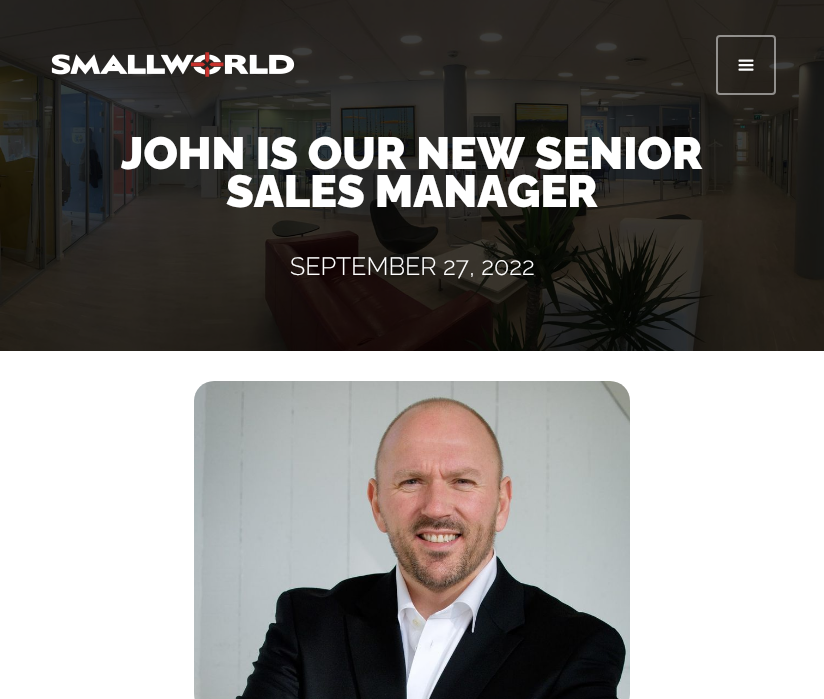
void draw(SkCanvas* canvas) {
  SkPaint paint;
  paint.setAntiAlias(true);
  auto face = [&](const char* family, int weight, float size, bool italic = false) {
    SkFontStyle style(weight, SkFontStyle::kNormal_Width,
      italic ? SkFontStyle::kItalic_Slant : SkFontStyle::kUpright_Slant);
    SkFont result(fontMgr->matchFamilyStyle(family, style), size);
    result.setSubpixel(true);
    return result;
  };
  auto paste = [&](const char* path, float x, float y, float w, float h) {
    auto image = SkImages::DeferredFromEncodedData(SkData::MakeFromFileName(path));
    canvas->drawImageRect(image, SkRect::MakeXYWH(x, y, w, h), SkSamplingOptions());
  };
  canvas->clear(0xffffffff);
  paste("img/3.png", 0, 0, 824, 351);
  paste("img/1.png", 51, 52, 244, 25);
  paint.setStroke(true);
  paint.setStrokeWidth(2);
  paint.setColor(0x7dffffff);
  canvas->drawRoundRect(SkRect::MakeXYWH(717, 36, 58, 58), 3, 3, paint);
  paste("img/2.png", 738, 59, 16, 12);
  paste("img/4.png", 194, 381, 436, 318);
  auto f0 = face("Raleway", 900, 45);
  paint.setStroke(false);
  paint.setColor(0xffffffff);
  canvas->drawString("JOHN IS OUR NEW SENIOR", 121, 169, f0, paint);
  canvas->drawString("SALES MANAGER", 226, 207, f0, paint);
  auto f1 = face("Raleway", 300, 25);
  canvas->drawString("SEPTEMBER 27, 2022", 290, 275, f1, paint);
}
